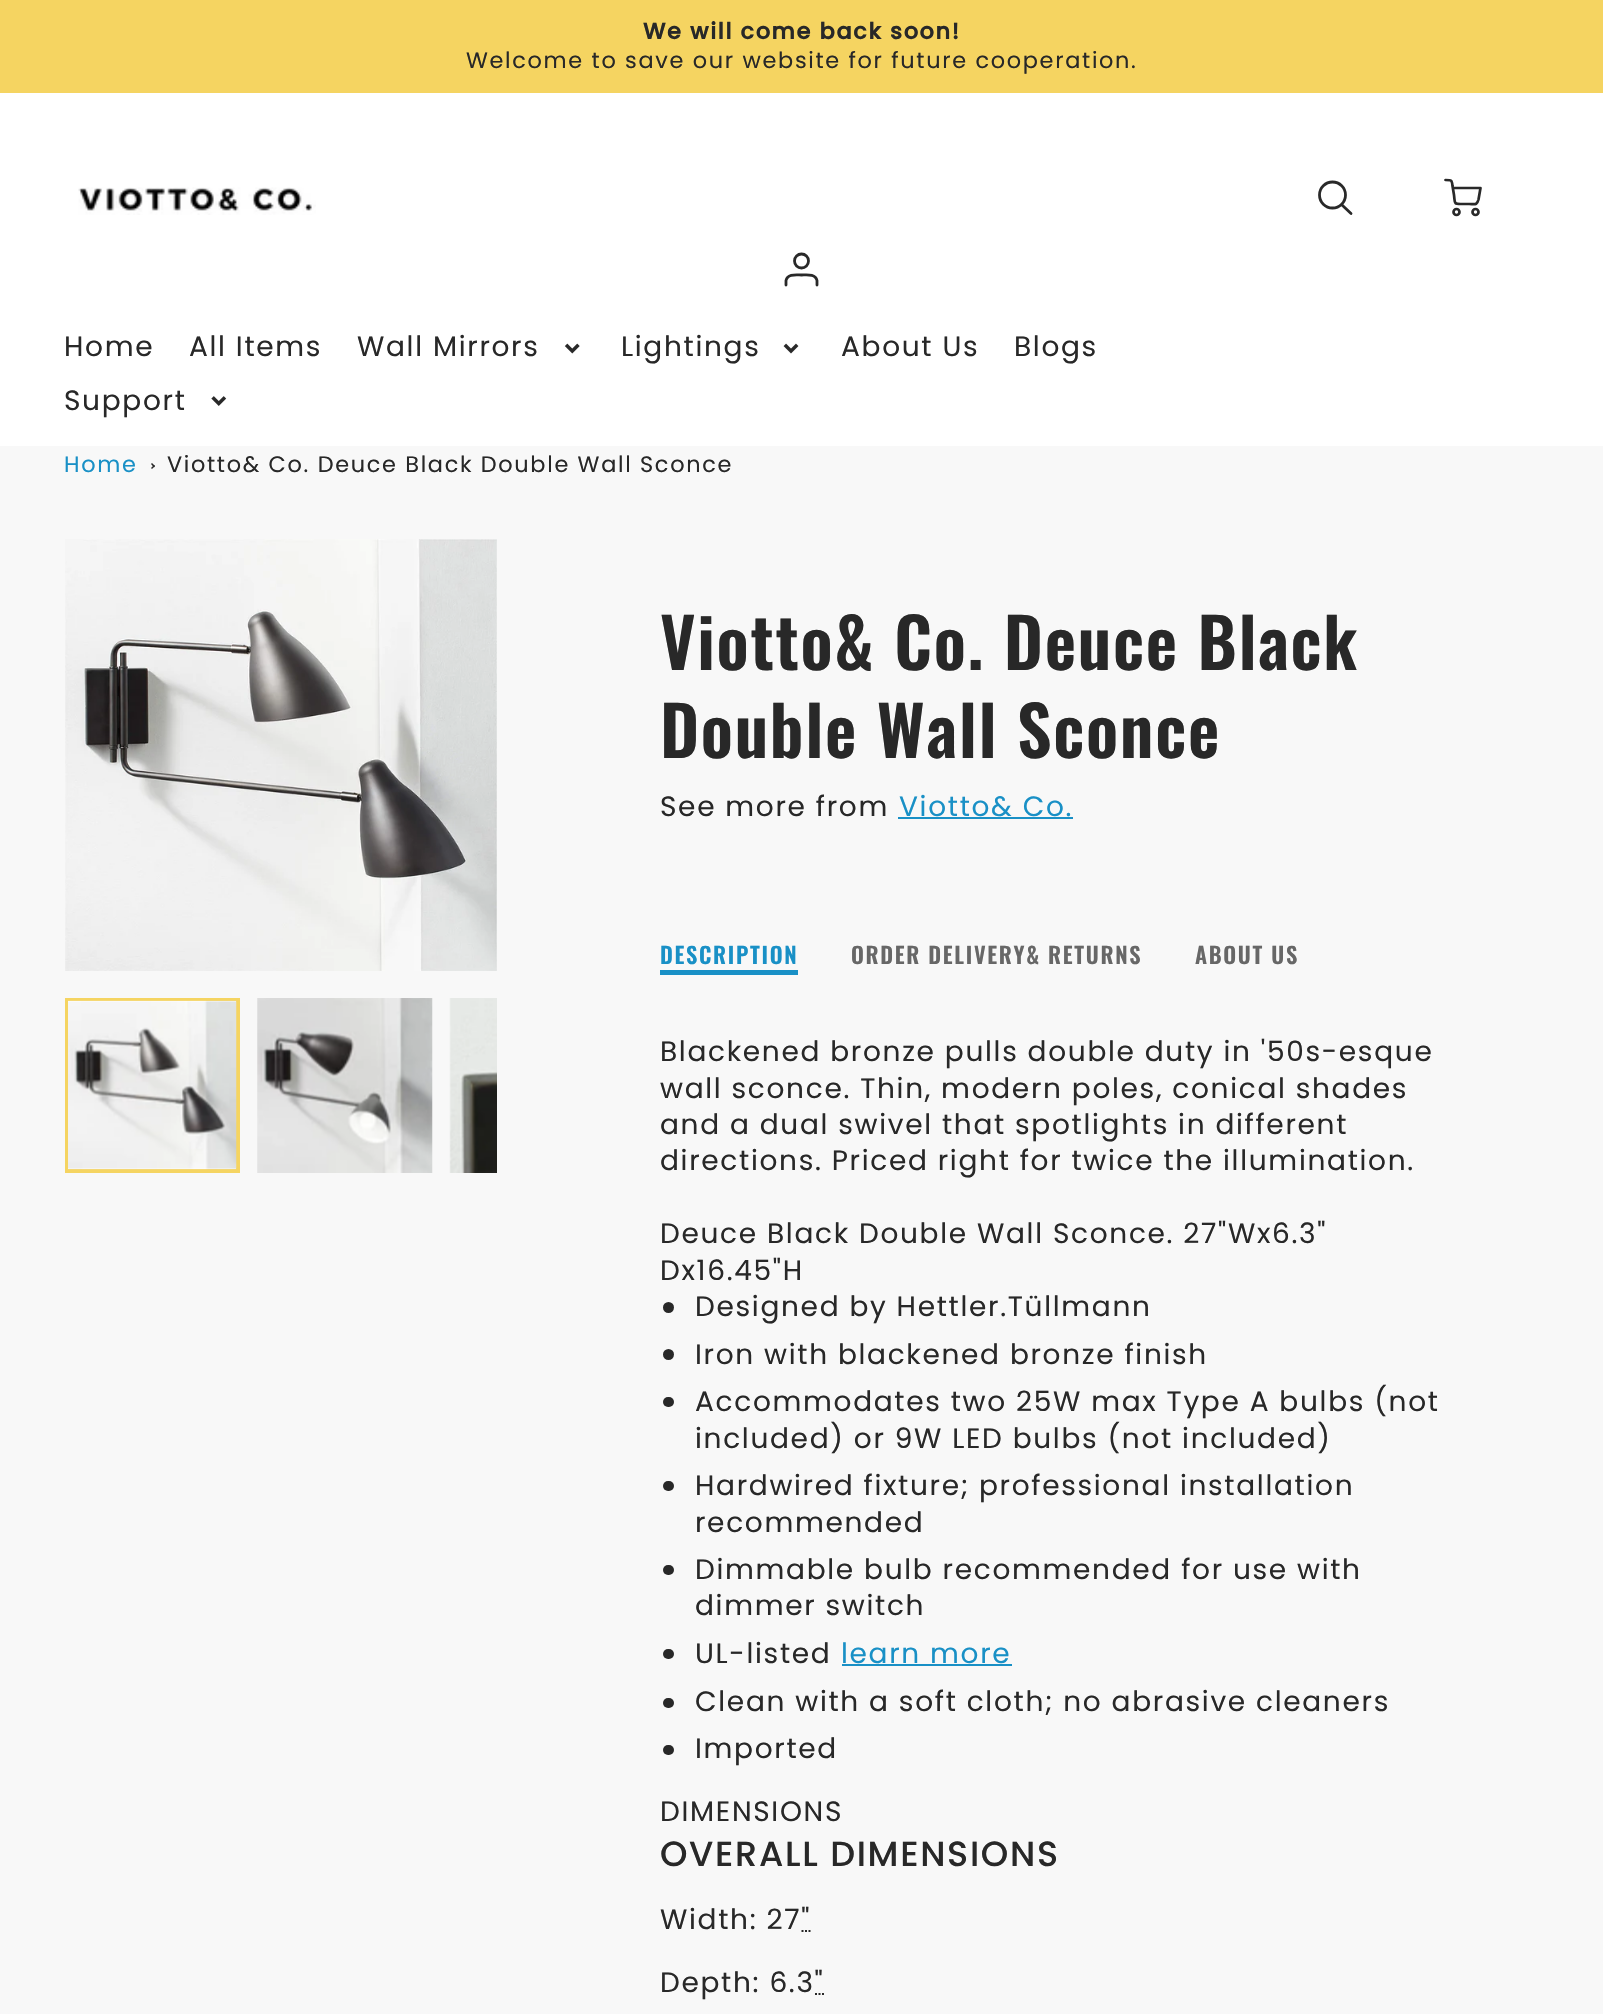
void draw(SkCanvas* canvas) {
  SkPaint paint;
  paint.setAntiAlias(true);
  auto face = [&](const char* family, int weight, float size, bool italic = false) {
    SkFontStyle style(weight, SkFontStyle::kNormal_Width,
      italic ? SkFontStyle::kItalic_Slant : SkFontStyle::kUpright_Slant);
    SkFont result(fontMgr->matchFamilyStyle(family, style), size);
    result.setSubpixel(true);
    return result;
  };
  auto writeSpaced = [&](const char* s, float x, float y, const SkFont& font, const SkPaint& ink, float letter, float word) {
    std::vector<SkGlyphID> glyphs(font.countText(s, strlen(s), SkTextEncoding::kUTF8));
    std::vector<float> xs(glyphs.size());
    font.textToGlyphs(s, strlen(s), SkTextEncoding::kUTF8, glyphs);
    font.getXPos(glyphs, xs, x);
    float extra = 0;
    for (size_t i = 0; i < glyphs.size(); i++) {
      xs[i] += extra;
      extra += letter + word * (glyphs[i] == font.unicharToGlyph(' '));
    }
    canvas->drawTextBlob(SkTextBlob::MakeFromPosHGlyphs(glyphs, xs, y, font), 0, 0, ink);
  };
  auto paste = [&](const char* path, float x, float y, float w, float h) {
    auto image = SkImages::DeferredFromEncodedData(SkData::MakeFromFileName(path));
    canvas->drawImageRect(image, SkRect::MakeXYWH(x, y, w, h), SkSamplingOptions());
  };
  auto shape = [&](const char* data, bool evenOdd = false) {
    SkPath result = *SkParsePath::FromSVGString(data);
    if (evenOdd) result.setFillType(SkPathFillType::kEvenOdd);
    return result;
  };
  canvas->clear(0xfff8f8f8);
  paint.setColor(0xfff5d461);
  canvas->drawRect(SkRect::MakeXYWH(0, 0, 1603, 93), paint);
  paint.setColor(0xffffffff);
  canvas->drawRect(SkRect::MakeXYWH(0, 93, 1603, 353), paint);
  paste("img/1.png", 78, 187, 238, 28);
  paint.setStroke(true);
  paint.setStrokeWidth(2.8f);
  paint.setColor(0xff292929);
  canvas->drawCircle(1332.5f, 195, 13, paint);
  paint.setStrokeCap(SkPaint::kRound_Cap);
  paint.setStrokeJoin(SkPaint::kRound_Join);
  canvas->drawPath(shape("M1351 213.5L1342 205"), paint);
  paint.setStrokeWidth(2.7f);
  paint.setStrokeCap(SkPaint::kButt_Cap);
  paint.setStrokeJoin(SkPaint::kMiter_Join);
  canvas->drawCircle(1456.5f, 212, 3, paint);
  canvas->drawCircle(1475.5f, 212, 3, paint);
  paint.setStrokeCap(SkPaint::kRound_Cap);
  paint.setStrokeJoin(SkPaint::kRound_Join);
  canvas->drawPath(shape("M1453 188H1480.5L1478.5 199.5C1477 205.5 1475 204 1469 204H1460.5C1453.5 204 1455 202.5 1454 195L1452.5 186C1452 180 1451.5 180 1445.5 180"), paint);
  paint.setStrokeWidth(2.8f);
  canvas->drawPath(shape("M817 285V280.5C815.5 273.5 806.5 275 801.5 275C796.5 275 787.5 273.5 786 280.5V285"), paint);
  paint.setStrokeCap(SkPaint::kButt_Cap);
  paint.setStrokeJoin(SkPaint::kMiter_Join);
  canvas->drawCircle(801.5f, 261, 7, paint);
  paste("img/2.png", 564, 343, 16, 11);
  paste("img/3.png", 783, 343, 16, 11);
  paste("img/4.png", 211, 396, 16, 10);
  paint.setStroke(false);
  paint.setColor(0xff282828);
  canvas->drawPath(shape("M152 463L155 466L154 467.5L151 464Z"), paint);
  canvas->drawPath(shape("M154 465L155 466L152 469L151 468Z"), paint);
  paste("img/5.png", 65, 539, 432, 432);
  paint.setStroke(true);
  paint.setStrokeWidth(4);
  paint.setColor(0xfff5d461);
  canvas->drawRect(SkRect::MakeXYWH(67, 1000, 171, 171), paint);
  paint.setStroke(false);
  paint.setColor(0xffffffff);
  canvas->drawRect(SkRect::MakeXYWH(68, 1001, 168, 168), paint);
  paste("img/6.png", 68, 1000, 169, 170);
  paste("img/7.png", 257, 998, 176, 175);
  paste("img/8.png", 449, 998, 48, 175);
  paint.setColor(0xff1990c6);
  canvas->drawRect(SkRect::MakeXYWH(898, 817, 175, 2), paint);
  canvas->drawRect(SkRect::MakeXYWH(660, 970, 138, 5), paint);
  paint.setColor(0xff282828);
  canvas->drawCircle(668.5f, 1307.5f, 5.5f, paint);
  canvas->drawCircle(668.5f, 1354.5f, 5.5f, paint);
  canvas->drawRoundRect(SkRect::MakeXYWH(663, 1397, 11, 10), 5, 5, paint);
  canvas->drawRoundRect(SkRect::MakeXYWH(663, 1481, 11, 10), 5, 5, paint);
  canvas->drawRoundRect(SkRect::MakeXYWH(663, 1565, 11, 10), 5, 5, paint);
  canvas->drawRoundRect(SkRect::MakeXYWH(663, 1649, 11, 10), 5, 5, paint);
  paint.setColor(0xff1990c6);
  canvas->drawRect(SkRect::MakeXYWH(842, 1664, 170, 2), paint);
  paint.setColor(0xff282828);
  canvas->drawRoundRect(SkRect::MakeXYWH(663, 1698, 11, 10), 5, 5, paint);
  canvas->drawRoundRect(SkRect::MakeXYWH(663, 1745, 11, 10), 5, 5, paint);
  paint.setStroke(true);
  paint.setStrokeWidth(1.8f);
  canvas->drawPath(shape("M801.5 1931H803.5M805 1931H807M808.5 1931H810.5"), paint);
  canvas->drawPath(shape("M815 1994H817M818.5 1994H820.5M822 1994H824"), paint);
  auto f0 = face("Poppins", 700, 22.4f);
  paint.setStroke(false);
  writeSpaced("We will come back soon!", 643, 39, f0, paint, 1.68f, 0);
  auto f1 = face("Poppins", 400, 22.4f);
  writeSpaced("Welcome to save our website for future cooperation.", 466, 68, f1, paint, 1.68f, 0);
  auto f2 = face("Poppins", 400, 28);
  {
    const struct { const char* s; float x, y; } items[] = {
      {"Home", 64, 356},
      {"All Items", 189, 356},
      {"Wall Mirrors", 357, 356},
      {"Lightings", 621, 356},
      {"About Us", 841, 356},
      {"Blogs", 1014, 356},
      {"Support", 64, 410},
    };
    for (auto [s, x, y] : items) {
      writeSpaced(s, x, y, f2, paint, 1.68f, 0);
    }
  }
  paint.setColor(0xff1990c6);
  writeSpaced("Home", 64, 472, f1, paint, 1.68f, 0);
  paint.setColor(0xff282828);
  writeSpaced("Viotto& Co. Deuce Black Double Wall Sconce", 167, 472, f1, paint, 1.68f, 0);
  auto f3 = face("Oswald", 600, 68.3f);
  writeSpaced("Viotto& Co. Deuce Black", 660, 670, f3, paint, 1.68f, 0);
  writeSpaced("Double Wall Sconce", 660, 758, f3, paint, 1.68f, 0);
  writeSpaced("See more from", 660, 816, f2, paint, 1.68f, 0);
  paint.setColor(0xff1990c6);
  writeSpaced("Viotto& Co.", 899, 816, f2, paint, 1.68f, 0);
  auto f4 = face("Oswald", 600, 22.4f);
  writeSpaced("DESCRIPTION", 660, 964, f4, paint, 1.68f, 0);
  paint.setColor(0xff676767);
  writeSpaced("ORDER DELIVERY& RETURNS", 851, 964, f4, paint, 1.68f, 0);
  writeSpaced("ABOUT US", 1195, 964, f4, paint, 1.68f, 0);
  paint.setColor(0xff282828);
  {
    const struct { const char* s; float x, y; } items[] = {
      {"Blackened bronze pulls double duty in '50s-esque", 660, 1061},
      {"wall sconce. Thin, modern poles, conical shades", 660, 1098},
      {"and a dual swivel that spotlights in different", 660, 1134},
      {"directions. Priced right for twice the illumination.", 660, 1170},
      {"Deuce Black Double Wall Sconce. 27\"Wx6.3\"", 660, 1243},
      {"Dx16.45\"H", 660, 1280},
      {"Designed by Hettler.Tüllmann", 695, 1316},
      {"Iron with blackened bronze finish", 695, 1364},
      {"Accommodates two 25W max Type A bulbs (not", 695, 1411},
      {"included) or 9W LED bulbs (not included)", 695, 1448},
      {"Hardwired fixture; professional installation", 695, 1495},
      {"recommended", 695, 1532},
      {"Dimmable bulb recommended for use with", 695, 1579},
      {"dimmer switch", 695, 1615},
      {"UL-listed", 695, 1663},
    };
    for (auto [s, x, y] : items) {
      writeSpaced(s, x, y, f2, paint, 1.68f, 0);
    }
  }
  paint.setColor(0xff1990c6);
  writeSpaced("learn more", 841, 1663, f2, paint, 1.68f, 0);
  paint.setColor(0xff282828);
  {
    const struct { const char* s; float x, y; } items[] = {
      {"Clean with a soft cloth; no abrasive cleaners", 695, 1711},
      {"Imported", 695, 1758},
      {"DIMENSIONS", 660, 1821},
    };
    for (auto [s, x, y] : items) {
      writeSpaced(s, x, y, f2, paint, 1.68f, 0);
    }
  }
  auto f5 = face("Poppins", 500, 35);
  writeSpaced("OVERALL DIMENSIONS", 660, 1866, f5, paint, 1.68f, 0);
  writeSpaced("Width: 27\"", 660, 1929, f2, paint, 1.68f, 0);
  writeSpaced("Depth: 6.3\"", 660, 1992, f2, paint, 1.68f, 0);
}
